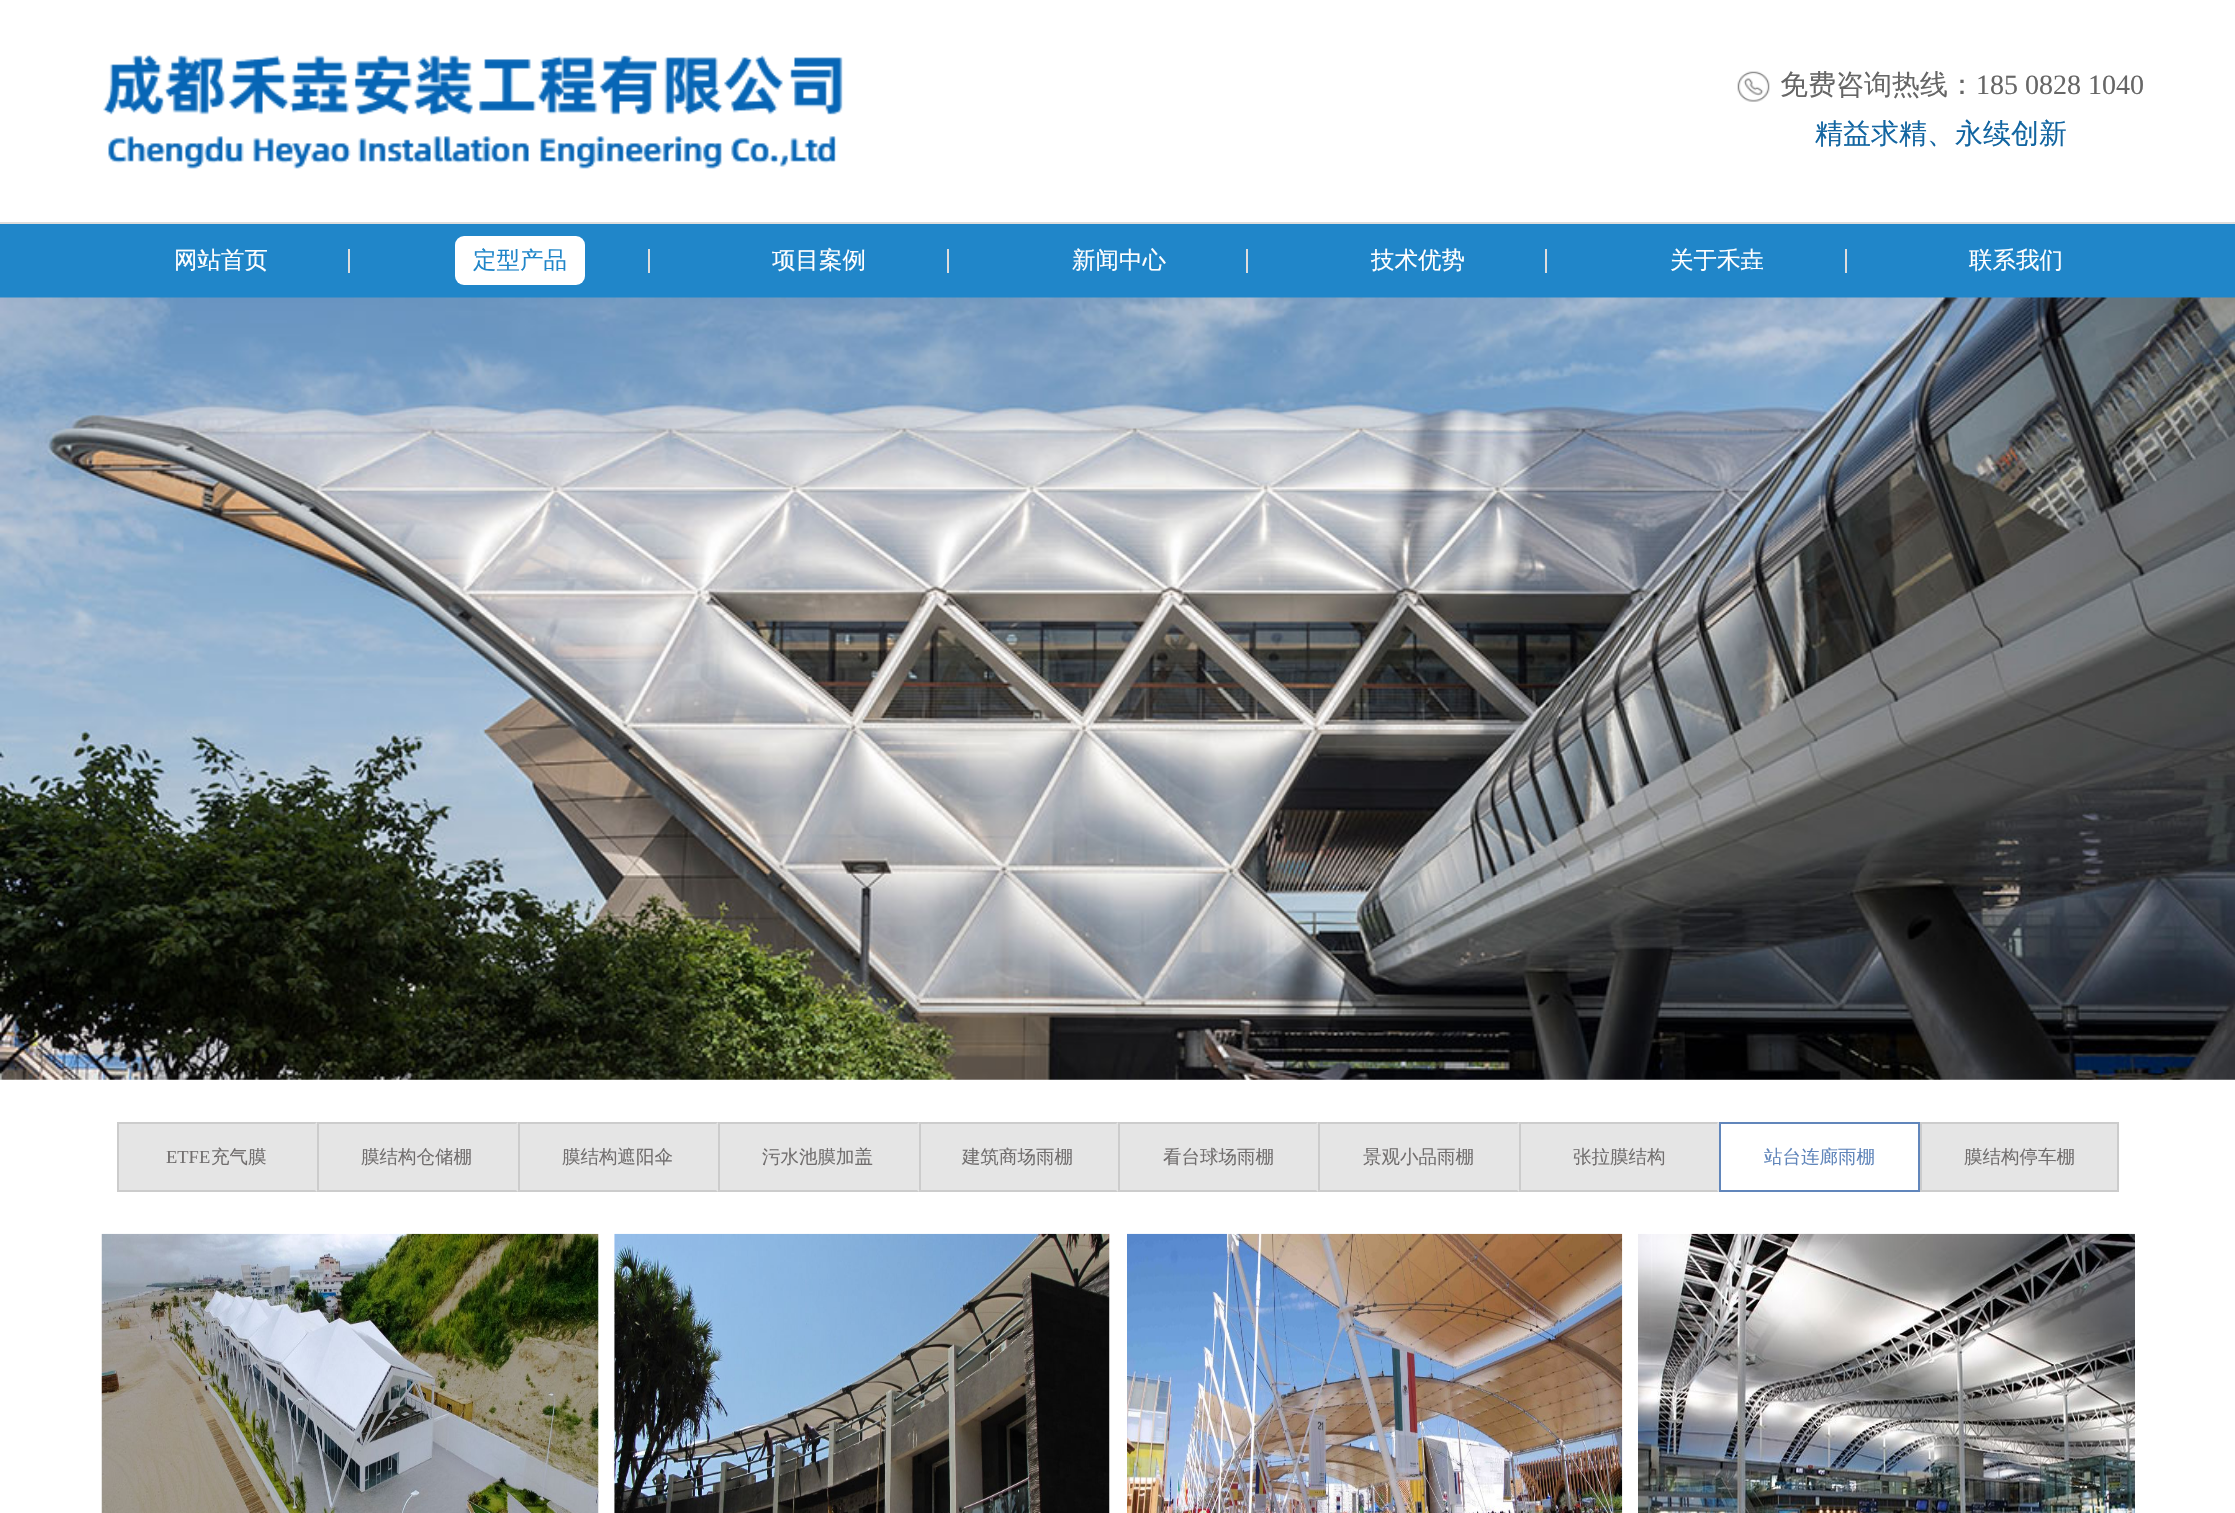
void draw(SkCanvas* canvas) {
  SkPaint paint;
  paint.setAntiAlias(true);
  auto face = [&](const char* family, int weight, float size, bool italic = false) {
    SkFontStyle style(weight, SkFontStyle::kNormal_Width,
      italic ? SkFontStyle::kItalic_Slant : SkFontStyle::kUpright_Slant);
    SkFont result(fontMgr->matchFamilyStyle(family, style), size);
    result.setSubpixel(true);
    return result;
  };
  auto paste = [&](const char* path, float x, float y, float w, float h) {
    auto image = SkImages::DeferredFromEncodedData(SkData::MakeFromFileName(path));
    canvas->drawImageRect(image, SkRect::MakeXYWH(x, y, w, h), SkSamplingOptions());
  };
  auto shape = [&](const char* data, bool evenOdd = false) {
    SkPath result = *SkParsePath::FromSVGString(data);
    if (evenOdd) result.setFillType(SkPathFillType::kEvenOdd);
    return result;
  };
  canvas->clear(0xffffffff);
  paint.setColor(0xffdddddd);
  canvas->drawRect(SkRect::MakeXYWH(0, 222, 2235, 2), paint);
  paste("img/1.png", 103, 54, 740, 115);
  paste("img/2.png", 1737, 71, 33, 31);
  {
    const struct { float x, y, w, h; SkColor color; } items[] = {
      {0, 224, 2235, 74, 0xff2086c9},
      {348, 249, 2, 24, 0xffdddddd},
      {648, 249, 2, 24, 0xffdddddd},
    };
    for (auto [x, y, w, h, color] : items) {
      paint.setColor(color);
      canvas->drawRect(SkRect::MakeXYWH(x, y, w, h), paint);
    }
  }
  paint.setColor(0xffffffff);
  canvas->drawRoundRect(SkRect::MakeXYWH(455, 236, 130, 49), 9, 9, paint);
  {
    const struct { float x, y, w, h; SkColor color; } items[] = {
      {947, 249, 2, 24, 0xffdddddd},
      {1246, 249, 2, 24, 0xffdddddd},
      {1545, 249, 2, 24, 0xffdddddd},
      {1845, 249, 2, 24, 0xffdddddd},
    };
    for (auto [x, y, w, h, color] : items) {
      paint.setColor(color);
      canvas->drawRect(SkRect::MakeXYWH(x, y, w, h), paint);
    }
  }
  paste("img/3.png", 0, 297, 2235, 783);
  paint.setColor(0xffe5e5e5);
  canvas->drawRect(SkRect::MakeXYWH(119, 1122, 198, 70), paint);
  paint.setColor(0xffcccccc);
  canvas->drawPath(shape("M117 1122H317L315 1124H119Z"), paint);
  canvas->drawPath(shape("M317 1192H117L119 1190H315Z"), paint);
  canvas->drawRect(SkRect::MakeXYWH(117, 1122, 2, 70), paint);
  paint.setColor(0xffe5e5e5);
  canvas->drawRect(SkRect::MakeXYWH(319, 1122, 199, 70), paint);
  paint.setColor(0xffcccccc);
  canvas->drawPath(shape("M317 1122H518L516 1124H318Z"), paint);
  canvas->drawPath(shape("M518 1192H317L318 1190H516Z"), paint);
  canvas->drawRect(SkRect::MakeXYWH(317, 1122, 2, 70), paint);
  paint.setColor(0xffe5e5e5);
  canvas->drawRect(SkRect::MakeXYWH(520, 1122, 198, 70), paint);
  paint.setColor(0xffcccccc);
  canvas->drawPath(shape("M518 1122H718L716 1124H520Z"), paint);
  canvas->drawPath(shape("M718 1192H518L520 1190H716Z"), paint);
  canvas->drawRect(SkRect::MakeXYWH(518, 1122, 2, 70), paint);
  paint.setColor(0xffe5e5e5);
  canvas->drawRect(SkRect::MakeXYWH(720, 1122, 199, 70), paint);
  paint.setColor(0xffcccccc);
  canvas->drawPath(shape("M718 1122H919L917 1124H719Z"), paint);
  canvas->drawPath(shape("M919 1192H718L719 1190H917Z"), paint);
  canvas->drawRect(SkRect::MakeXYWH(718, 1122, 2, 70), paint);
  paint.setColor(0xffe5e5e5);
  canvas->drawRect(SkRect::MakeXYWH(921, 1122, 197, 70), paint);
  paint.setColor(0xffcccccc);
  canvas->drawPath(shape("M919 1122H1118L1116 1124H920Z"), paint);
  canvas->drawPath(shape("M1118 1192H919L920 1190H1116Z"), paint);
  canvas->drawRect(SkRect::MakeXYWH(919, 1122, 2, 70), paint);
  paint.setColor(0xffe5e5e5);
  canvas->drawRect(SkRect::MakeXYWH(1120, 1122, 198, 70), paint);
  paint.setColor(0xffcccccc);
  canvas->drawPath(shape("M1118 1122H1318L1316 1124H1120Z"), paint);
  canvas->drawPath(shape("M1318 1192H1118L1120 1190H1316Z"), paint);
  canvas->drawRect(SkRect::MakeXYWH(1118, 1122, 2, 70), paint);
  paint.setColor(0xffe5e5e5);
  canvas->drawRect(SkRect::MakeXYWH(1320, 1122, 199, 70), paint);
  paint.setColor(0xffcccccc);
  canvas->drawPath(shape("M1318 1122H1519L1517 1124H1320Z"), paint);
  canvas->drawPath(shape("M1519 1192H1318L1320 1190H1517Z"), paint);
  canvas->drawRect(SkRect::MakeXYWH(1318, 1122, 2, 70), paint);
  paint.setColor(0xffe5e5e5);
  canvas->drawRect(SkRect::MakeXYWH(1521, 1122, 198, 70), paint);
  paint.setColor(0xffcccccc);
  canvas->drawPath(shape("M1519 1122H1718L1717 1124H1521Z"), paint);
  canvas->drawPath(shape("M1718 1192H1519L1521 1190H1717Z"), paint);
  canvas->drawRect(SkRect::MakeXYWH(1519, 1122, 2, 70), paint);
  paint.setStroke(true);
  paint.setStrokeWidth(2);
  paint.setColor(0xff6186bb);
  canvas->drawRect(SkRect::MakeXYWH(1720, 1123, 199, 68), paint);
  paint.setStroke(false);
  paint.setColor(0xffe5e5e5);
  canvas->drawRect(SkRect::MakeXYWH(1921, 1123, 197, 68), paint);
  paint.setStroke(true);
  paint.setColor(0xffcccccc);
  canvas->drawRect(SkRect::MakeXYWH(1921, 1123, 197, 68), paint);
  paste("img/4.png", 101, 1233, 498, 280);
  paste("img/5.png", 614, 1233, 496, 280);
  paste("img/6.png", 1127, 1233, 496, 280);
  paste("img/7.png", 1638, 1233, 497, 280);
  auto f0 = face("WenQuanYi Zen Hei", 500, 28);
  paint.setStroke(false);
  paint.setColor(0xff666666);
  canvas->drawString("免费咨询热线：", 1780, 94, f0, paint);
  auto f1 = face("Liberation Serif", 400, 28);
  canvas->drawString("185 0828 1040", 1976, 94, f1, paint);
  paint.setColor(0xff1265a1);
  canvas->drawString("精益求精、永续创新", 1815, 143, f0, paint);
  auto f2 = face("WenQuanYi Zen Hei", 500, 23.5f);
  paint.setColor(0xffffffff);
  canvas->drawString("网站首页", 174, 268, f2, paint);
  paint.setColor(0xff2086c9);
  canvas->drawString("定型产品", 473, 268, f2, paint);
  paint.setColor(0xffffffff);
  {
    const struct { const char* s; float x, y; } items[] = {
      {"项目案例", 772, 268},
      {"新闻中心", 1072, 268},
      {"技术优势", 1371, 268},
      {"关于禾垚", 1670, 268},
      {"联系我们", 1969, 268},
    };
    for (auto [s, x, y] : items) {
      canvas->drawString(s, x, y, f2, paint);
    }
  }
  auto f3 = face("Liberation Serif", 400, 18.5f);
  paint.setColor(0xff716e6e);
  canvas->drawString("ETFE", 166, 1163, f3, paint);
  auto f4 = face("WenQuanYi Zen Hei", 500, 18.5f);
  {
    const struct { const char* s; float x, y; } items[] = {
      {"充气膜", 211, 1163},
      {"膜结构仓储棚", 361, 1163},
      {"膜结构遮阳伞", 562, 1163},
      {"污水池膜加盖", 762, 1163},
      {"建筑商场雨棚", 962, 1163},
      {"看台球场雨棚", 1163, 1163},
      {"景观小品雨棚", 1363, 1163},
      {"张拉膜结构", 1573, 1163},
    };
    for (auto [s, x, y] : items) {
      canvas->drawString(s, x, y, f4, paint);
    }
  }
  paint.setColor(0xff6186bb);
  canvas->drawString("站台连廊雨棚", 1764, 1163, f4, paint);
  paint.setColor(0xff716e6e);
  canvas->drawString("膜结构停车棚", 1964, 1163, f4, paint);
}
